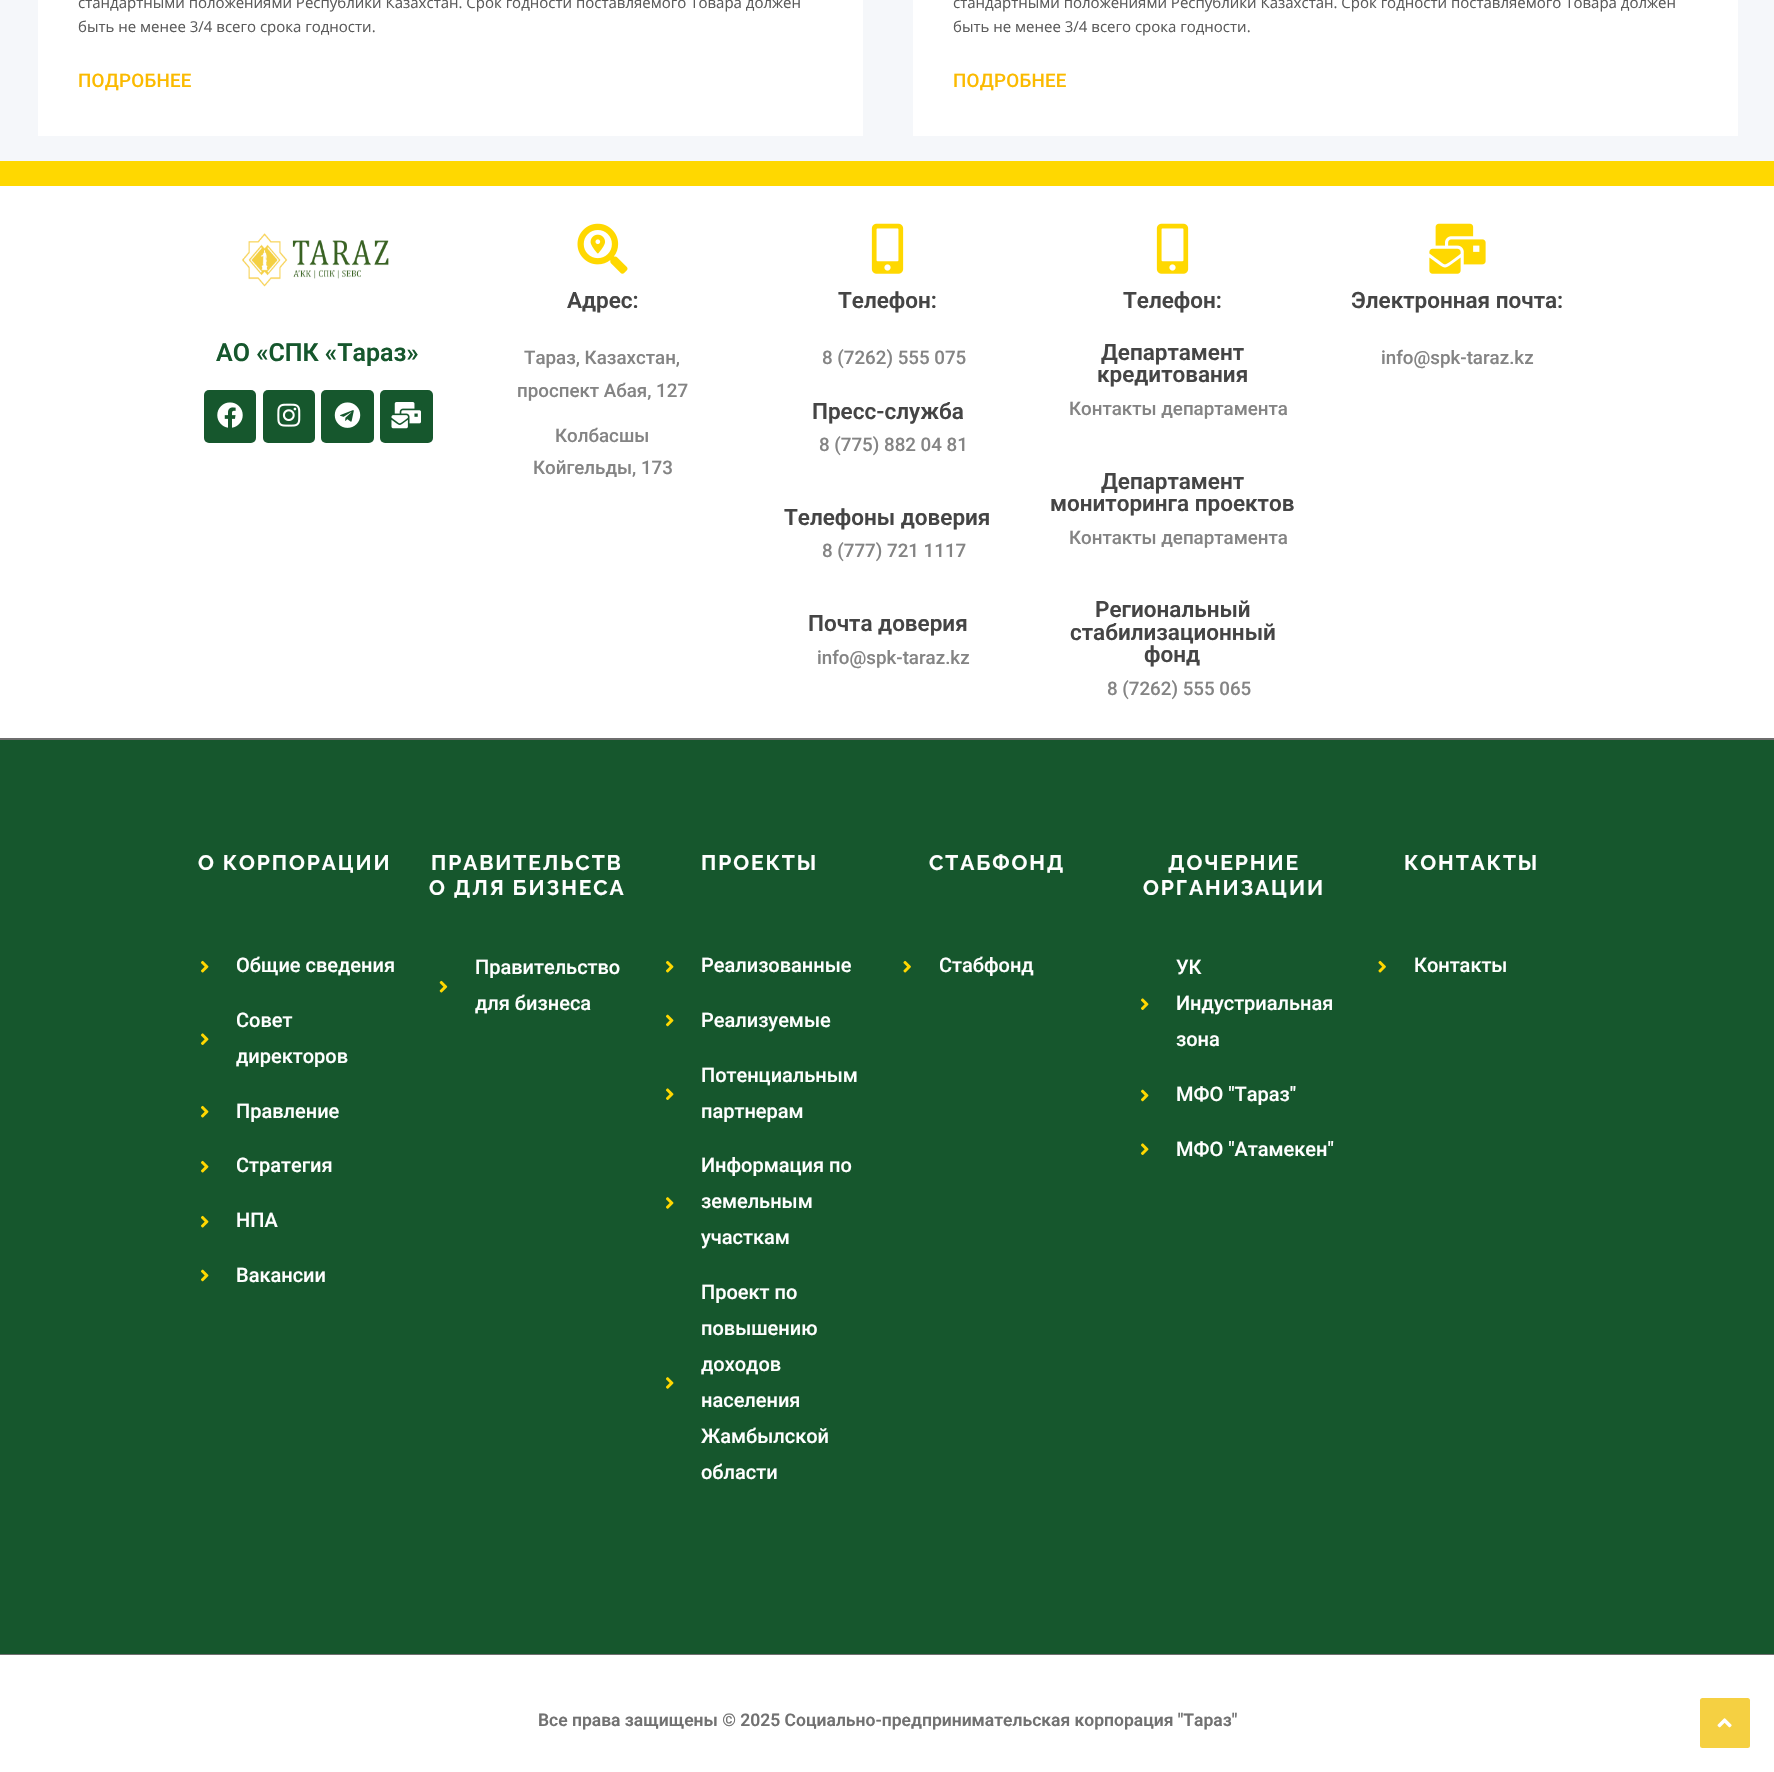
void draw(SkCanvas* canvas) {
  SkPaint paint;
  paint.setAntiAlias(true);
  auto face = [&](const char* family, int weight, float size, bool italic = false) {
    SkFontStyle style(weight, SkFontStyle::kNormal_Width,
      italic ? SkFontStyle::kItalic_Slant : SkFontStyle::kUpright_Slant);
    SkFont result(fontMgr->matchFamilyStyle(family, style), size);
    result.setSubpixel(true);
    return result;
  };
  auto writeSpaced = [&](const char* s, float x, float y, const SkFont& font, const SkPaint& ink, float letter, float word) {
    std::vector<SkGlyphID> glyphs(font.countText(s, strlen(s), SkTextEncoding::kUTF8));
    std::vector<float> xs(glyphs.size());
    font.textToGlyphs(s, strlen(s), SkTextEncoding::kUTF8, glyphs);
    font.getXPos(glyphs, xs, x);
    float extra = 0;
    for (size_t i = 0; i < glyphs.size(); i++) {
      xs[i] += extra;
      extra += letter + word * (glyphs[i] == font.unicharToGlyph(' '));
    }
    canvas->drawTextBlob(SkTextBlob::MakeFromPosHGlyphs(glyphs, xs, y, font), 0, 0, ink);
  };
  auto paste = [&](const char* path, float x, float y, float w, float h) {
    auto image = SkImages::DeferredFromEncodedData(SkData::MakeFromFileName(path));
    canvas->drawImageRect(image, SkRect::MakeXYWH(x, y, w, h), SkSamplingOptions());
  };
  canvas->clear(0xffffffff);
  {
    const struct { float x, y, w, h; SkColor color; } items[] = {
      {0, 0, 1774, 161, 0xfff5f7fa},
      {38, 0, 825, 136, 0xffffffff},
      {913, 0, 825, 136, 0xffffffff},
      {0, 161, 1774, 25, 0xffffd800},
      {0, 738, 1774, 2, 0xff6e6e6e},
    };
    for (auto [x, y, w, h, color] : items) {
      paint.setColor(color);
      canvas->drawRect(SkRect::MakeXYWH(x, y, w, h), paint);
    }
  }
  paste("img/1.png", 242, 233, 147, 54);
  paint.setColor(0xff16572d);
  canvas->drawRoundRect(SkRect::MakeXYWH(204, 390, 52, 53), 5, 5, paint);
  paste("img/2.png", 217, 402, 26, 26);
  canvas->drawRoundRect(SkRect::MakeXYWH(263, 390, 52, 53), 5, 5, paint);
  paste("img/3.png", 277, 403, 24, 24);
  canvas->drawRoundRect(SkRect::MakeXYWH(321, 390, 53, 53), 5, 5, paint);
  paste("img/4.png", 334, 402, 27, 26);
  canvas->drawRoundRect(SkRect::MakeXYWH(380, 390, 53, 53), 5, 5, paint);
  paste("img/5.png", 391, 402, 30, 27);
  paste("img/6.png", 577, 223, 51, 51);
  paste("img/7.png", 871, 223, 33, 51);
  paste("img/7.png", 1156, 223, 33, 51);
  paste("img/8.png", 1429, 223, 57, 51);
  canvas->drawRect(SkRect::MakeXYWH(0, 740, 1774, 914), paint);
  paste("img/9.png", 201, 960, 8, 13);
  paste("img/10.png", 201, 1033, 8, 12);
  paste("img/9.png", 201, 1105, 8, 13);
  paste("img/9.png", 201, 1160, 8, 13);
  paste("img/9.png", 201, 1215, 8, 13);
  paste("img/11.png", 201, 1269, 8, 13);
  paste("img/12.png", 439, 980, 9, 13);
  paste("img/9.png", 666, 960, 8, 13);
  paste("img/11.png", 666, 1014, 8, 13);
  paste("img/10.png", 666, 1088, 8, 12);
  paste("img/13.png", 666, 1197, 8, 12);
  paste("img/13.png", 666, 1377, 8, 12);
  paste("img/14.png", 903, 960, 8, 13);
  paste("img/10.png", 1141, 998, 8, 12);
  paste("img/11.png", 1141, 1089, 8, 13);
  paste("img/10.png", 1141, 1143, 8, 12);
  paste("img/14.png", 1378, 960, 8, 13);
  paint.setColor(0xff6e6e6e);
  canvas->drawRect(SkRect::MakeXYWH(0, 1654, 1774, 1), paint);
  paint.setColor(0xfff5d042);
  canvas->drawRoundRect(SkRect::MakeXYWH(1700, 1698, 50, 50), 2.5f, 2.5f, paint);
  paste("img/15.png", 1717, 1718, 15, 10);
  auto f0 = face("Open Sans", 400, 15);
  paint.setColor(0xff5b5b5b);
  canvas->drawString("стандартными положениями Республики Казахстан. Срок годности поставляемого Товара должен", 78, 8, f0, paint);
  canvas->drawString("быть не менее 3/4 всего срока годности.", 78, 32, f0, paint);
  auto f1 = face("Roboto", 500, 18.75f);
  paint.setColor(0xfffbba00);
  writeSpaced("ПОДРОБНЕЕ", 78, 87, f1, paint, 0.25f, 0);
  paint.setColor(0xff5b5b5b);
  canvas->drawString("стандартными положениями Республики Казахстан. Срок годности поставляемого Товара должен", 953, 8, f0, paint);
  canvas->drawString("быть не менее 3/4 всего срока годности.", 953, 32, f0, paint);
  paint.setColor(0xfffbba00);
  writeSpaced("ПОДРОБНЕЕ", 953, 87, f1, paint, 0.25f, 0);
  auto f2 = face("Roboto", 600, 25);
  paint.setColor(0xff16572d);
  canvas->drawString("АО «СПК «Тараз»", 216, 361, f2, paint);
  auto f3 = face("Roboto", 600, 22.5f);
  paint.setColor(0xff454545);
  canvas->drawString("Адрес:", 567, 308, f3, paint);
  paint.setColor(0xff848484);
  {
    const struct { const char* s; float x, y; } items[] = {
      {"Тараз, Казахстан,", 524, 364},
      {"проспект Абая, 127", 517, 397},
      {"Колбасшы", 555, 442},
      {"Койгельды, 173", 533, 474},
    };
    for (auto [s, x, y] : items) {
      canvas->drawString(s, x, y, f1, paint);
    }
  }
  paint.setColor(0xff454545);
  canvas->drawString("Телефон:", 838, 308, f3, paint);
  paint.setColor(0xff848484);
  canvas->drawString("8 (7262) 555 075", 822, 364, f1, paint);
  paint.setColor(0xff454545);
  canvas->drawString("Пресс-служба", 812, 419, f3, paint);
  paint.setColor(0xff848484);
  canvas->drawString("8 (775) 882 04 81", 819, 451, f1, paint);
  paint.setColor(0xff454545);
  canvas->drawString("Телефоны доверия", 784, 525, f3, paint);
  paint.setColor(0xff848484);
  canvas->drawString("8 (777) 721 1117", 822, 557, f1, paint);
  paint.setColor(0xff454545);
  canvas->drawString("Почта доверия", 808, 631, f3, paint);
  paint.setColor(0xff848484);
  canvas->drawString("info@spk-taraz.kz", 817, 664, f1, paint);
  paint.setColor(0xff454545);
  {
    const struct { const char* s; float x, y; } items[] = {
      {"Телефон:", 1123, 308},
      {"Департамент", 1101, 360},
      {"кредитования", 1097, 382},
    };
    for (auto [s, x, y] : items) {
      canvas->drawString(s, x, y, f3, paint);
    }
  }
  paint.setColor(0xff848484);
  canvas->drawString("Контакты департамента", 1069, 415, f1, paint);
  paint.setColor(0xff454545);
  canvas->drawString("Департамент", 1101, 489, f3, paint);
  canvas->drawString("мониторинга проектов", 1050, 511, f3, paint);
  paint.setColor(0xff848484);
  canvas->drawString("Контакты департамента", 1069, 544, f1, paint);
  paint.setColor(0xff454545);
  {
    const struct { const char* s; float x, y; } items[] = {
      {"Региональный", 1095, 617},
      {"стабилизационный", 1070, 640},
      {"фонд", 1144, 662},
    };
    for (auto [s, x, y] : items) {
      canvas->drawString(s, x, y, f3, paint);
    }
  }
  paint.setColor(0xff848484);
  canvas->drawString("8 (7262) 555 065", 1107, 695, f1, paint);
  paint.setColor(0xff454545);
  canvas->drawString("Электронная почта:", 1351, 308, f3, paint);
  paint.setColor(0xff848484);
  canvas->drawString("info@spk-taraz.kz", 1381, 364, f1, paint);
  auto f4 = face("Raleway", 700, 21);
  paint.setColor(0xffffffff);
  writeSpaced("О КОРПОРАЦИИ", 198, 870, f4, paint, 1.9f, 0);
  auto f5 = face("Roboto", 500, 20);
  {
    const struct { const char* s; float x, y; } items[] = {
      {"Общие сведения", 236, 972},
      {"Совет", 236, 1027},
      {"директоров", 236, 1063},
      {"Правление", 236, 1118},
      {"Стратегия", 236, 1172},
      {"НПА", 236, 1227},
      {"Вакансии", 236, 1282},
    };
    for (auto [s, x, y] : items) {
      canvas->drawString(s, x, y, f5, paint);
    }
  }
  writeSpaced("ПРАВИТЕЛЬСТВ", 431, 870, f4, paint, 1.9f, 0);
  writeSpaced("О ДЛЯ БИЗНЕСА", 429, 895, f4, paint, 1.9f, 0);
  canvas->drawString("Правительство", 475, 974, f5, paint);
  canvas->drawString("для бизнеса", 475, 1010, f5, paint);
  writeSpaced("ПРОЕКТЫ", 701, 870, f4, paint, 1.9f, 0);
  {
    const struct { const char* s; float x, y; } items[] = {
      {"Реализованные", 701, 972},
      {"Реализуемые", 701, 1027},
      {"Потенциальным", 701, 1082},
      {"партнерам", 701, 1118},
      {"Информация по", 701, 1172},
      {"земельным", 701, 1208},
      {"участкам", 701, 1244},
      {"Проект по", 701, 1299},
      {"повышению", 701, 1335},
      {"доходов", 701, 1371},
      {"населения", 701, 1407},
      {"Жамбылской", 701, 1443},
      {"области", 701, 1479},
    };
    for (auto [s, x, y] : items) {
      canvas->drawString(s, x, y, f5, paint);
    }
  }
  writeSpaced("СТАБФОНД", 929, 870, f4, paint, 1.9f, 0);
  canvas->drawString("Стабфонд", 939, 972, f5, paint);
  writeSpaced("ДОЧЕРНИЕ", 1168, 870, f4, paint, 1.9f, 0);
  writeSpaced("ОРГАНИЗАЦИИ", 1143, 895, f4, paint, 1.9f, 0);
  {
    const struct { const char* s; float x, y; } items[] = {
      {"УК", 1176, 974},
      {"Индустриальная", 1176, 1010},
      {"зона", 1176, 1046},
      {"МФО \"Тараз\"", 1176, 1101},
      {"МФО \"Атамекен\"", 1176, 1156},
    };
    for (auto [s, x, y] : items) {
      canvas->drawString(s, x, y, f5, paint);
    }
  }
  writeSpaced("КОНТАКТЫ", 1404, 870, f4, paint, 1.9f, 0);
  canvas->drawString("Контакты", 1414, 972, f5, paint);
  auto f6 = face("Roboto", 600, 17.5f);
  paint.setColor(0xff717171);
  canvas->drawString("Все права защищены © 2025 Социально-предпринимательская корпорация \"Тараз\"", 538, 1726, f6, paint);
}
